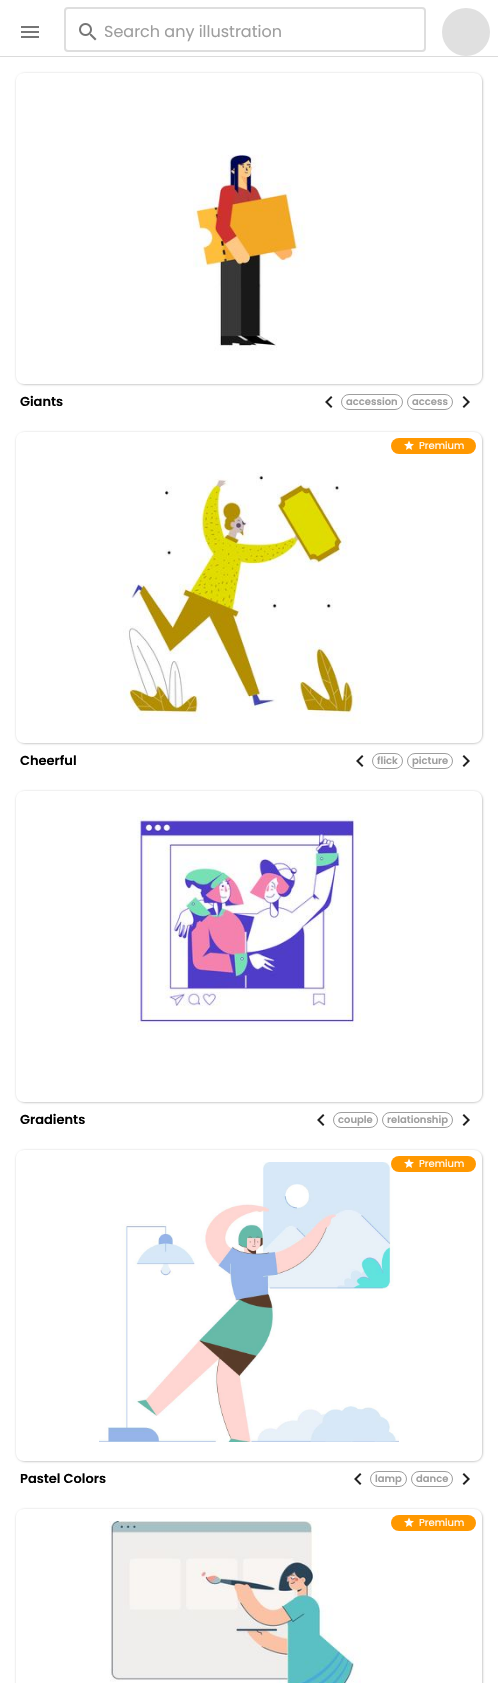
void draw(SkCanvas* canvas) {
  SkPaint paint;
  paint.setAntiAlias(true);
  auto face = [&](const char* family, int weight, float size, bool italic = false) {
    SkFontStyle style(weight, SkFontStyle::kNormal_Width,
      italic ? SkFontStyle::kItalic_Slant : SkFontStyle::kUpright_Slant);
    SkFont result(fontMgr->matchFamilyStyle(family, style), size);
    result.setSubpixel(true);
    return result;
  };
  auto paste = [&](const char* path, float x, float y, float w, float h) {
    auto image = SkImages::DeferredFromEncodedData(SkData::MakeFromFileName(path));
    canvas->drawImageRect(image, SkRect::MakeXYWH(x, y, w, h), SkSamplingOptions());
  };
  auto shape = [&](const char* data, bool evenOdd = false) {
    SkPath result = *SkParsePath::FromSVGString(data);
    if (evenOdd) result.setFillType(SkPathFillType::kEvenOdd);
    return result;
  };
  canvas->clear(0xffffffff);
  paint.setColor(0xffdbdbdb);
  canvas->drawRect(SkRect::MakeXYWH(0, 56, 498, 1), paint);
  paste("img/1.png", 21, 26, 18, 12);
  paste("img/2.png", 79, 23, 18, 18);
  paint.setStroke(true);
  paint.setStrokeWidth(2);
  paint.setColor(0xffdedede);
  canvas->drawRoundRect(SkRect::MakeXYWH(65, 8, 360, 43), 3, 3, paint);
  paint.setStroke(false);
  paint.setColor(0xffe0e0e0);
  canvas->drawCircle(466, 32, 24, paint);
  canvas->save();
  canvas->clipPath(shape("M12 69H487V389H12ZM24 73H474C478.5 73 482 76.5 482 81V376C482 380.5 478.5 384 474 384H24C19.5 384 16 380.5 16 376V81C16 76.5 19.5 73 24 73Z", true), true);
  paint.setColor(0x33000000);
  paint.setMaskFilter(SkMaskFilter::MakeBlur(kNormal_SkBlurStyle, 1));
  canvas->drawRoundRect(SkRect::MakeXYWH(16, 73, 467, 312), 9, 9, paint);
  paint.setMaskFilter(nullptr);
  canvas->restore();
  paste("img/3.png", 193, 154, 113, 197);
  paste("img/4.png", 325, 396, 8, 12);
  paint.setStroke(true);
  paint.setStrokeWidth(1);
  paint.setColor(0xff9e9e9e);
  canvas->drawRoundRect(SkRect::MakeXYWH(341.5f, 394.5f, 61, 15), 7.5f, 7.5f, paint);
  canvas->drawRoundRect(SkRect::MakeXYWH(407.5f, 394.5f, 45, 15), 7.5f, 7.5f, paint);
  paste("img/5.png", 462, 396, 8, 12);
  canvas->save();
  canvas->clipPath(shape("M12 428H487V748H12ZM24 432H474C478.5 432 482 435.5 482 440V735C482 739.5 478.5 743 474 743H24C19.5 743 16 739.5 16 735V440C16 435.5 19.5 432 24 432Z", true), true);
  paint.setStroke(false);
  paint.setColor(0x33000000);
  paint.setMaskFilter(SkMaskFilter::MakeBlur(kNormal_SkBlurStyle, 1));
  canvas->drawRoundRect(SkRect::MakeXYWH(16, 432, 467, 312), 9, 9, paint);
  paint.setMaskFilter(nullptr);
  canvas->restore();
  paste("img/6.png", 123, 472, 238, 252);
  paint.setColor(0xffff9800);
  canvas->drawRoundRect(SkRect::MakeXYWH(391, 438, 85, 16), 8, 8, paint);
  paste("img/7.png", 404, 440, 10, 10);
  paste("img/4.png", 356, 755, 8, 12);
  paint.setStroke(true);
  paint.setColor(0xff9e9e9e);
  canvas->drawRoundRect(SkRect::MakeXYWH(372.5f, 753.5f, 30, 15), 7.5f, 7.5f, paint);
  canvas->drawRoundRect(SkRect::MakeXYWH(407.5f, 753.5f, 45, 15), 7.5f, 7.5f, paint);
  paste("img/5.png", 462, 755, 8, 12);
  canvas->save();
  canvas->clipPath(shape("M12 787H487V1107H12ZM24 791H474C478.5 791 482 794.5 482 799V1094C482 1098.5 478.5 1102 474 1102H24C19.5 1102 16 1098.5 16 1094V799C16 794.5 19.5 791 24 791Z", true), true);
  paint.setStroke(false);
  paint.setColor(0x33000000);
  paint.setMaskFilter(SkMaskFilter::MakeBlur(kNormal_SkBlurStyle, 1));
  canvas->drawRoundRect(SkRect::MakeXYWH(16, 791, 467, 312), 9, 9, paint);
  paint.setMaskFilter(nullptr);
  canvas->restore();
  paste("img/8.png", 137, 816, 224, 211);
  paste("img/4.png", 317, 1114, 8, 12);
  paint.setStroke(true);
  paint.setColor(0xff9e9e9e);
  canvas->drawRoundRect(SkRect::MakeXYWH(333.5f, 1112.5f, 44, 15), 7.5f, 7.5f, paint);
  canvas->drawRoundRect(SkRect::MakeXYWH(382.5f, 1112.5f, 70, 15), 7.5f, 7.5f, paint);
  paste("img/5.png", 462, 1114, 8, 12);
  canvas->save();
  canvas->clipPath(shape("M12 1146H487V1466H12ZM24 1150H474C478.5 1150 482 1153.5 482 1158V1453C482 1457.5 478.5 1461 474 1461H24C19.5 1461 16 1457.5 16 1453V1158C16 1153.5 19.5 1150 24 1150Z", true), true);
  paint.setStroke(false);
  paint.setColor(0x33000000);
  paint.setMaskFilter(SkMaskFilter::MakeBlur(kNormal_SkBlurStyle, 1));
  canvas->drawRoundRect(SkRect::MakeXYWH(16, 1150, 467, 312), 9, 9, paint);
  paint.setMaskFilter(nullptr);
  canvas->restore();
  paste("img/9.png", 99, 1162, 300, 280);
  paint.setColor(0xffff9800);
  canvas->drawRoundRect(SkRect::MakeXYWH(391, 1156, 85, 16), 8, 8, paint);
  paste("img/7.png", 404, 1158, 10, 10);
  paste("img/4.png", 354, 1473, 8, 12);
  paint.setStroke(true);
  paint.setColor(0xff9e9e9e);
  canvas->drawRoundRect(SkRect::MakeXYWH(370.5f, 1471.5f, 36, 15), 7.5f, 7.5f, paint);
  canvas->drawRoundRect(SkRect::MakeXYWH(411.5f, 1471.5f, 41, 15), 7.5f, 7.5f, paint);
  paste("img/5.png", 462, 1473, 8, 12);
  canvas->save();
  canvas->clipPath(shape("M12 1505H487V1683H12ZM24 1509H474C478.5 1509 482 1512.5 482 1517V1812C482 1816.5 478.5 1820 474 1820H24C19.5 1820 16 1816.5 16 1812V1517C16 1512.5 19.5 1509 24 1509Z", true), true);
  paint.setStroke(false);
  paint.setColor(0x33000000);
  paint.setMaskFilter(SkMaskFilter::MakeBlur(kNormal_SkBlurStyle, 1));
  canvas->drawRoundRect(SkRect::MakeXYWH(16, 1509, 467, 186), 9, 9, paint);
  paint.setMaskFilter(nullptr);
  canvas->restore();
  paste("img/10.png", 109, 1521, 252, 162);
  paint.setColor(0xffff9800);
  canvas->drawRoundRect(SkRect::MakeXYWH(391, 1515, 85, 16), 8, 8, paint);
  paste("img/7.png", 404, 1517, 10, 10);
  auto f0 = face("Poppins", 400, 16);
  paint.setColor(0xff9e9e9e);
  canvas->drawString("Search any illustration", 104, 37, f0, paint);
  auto f1 = face("Poppins", 600, 13);
  paint.setColor(0xff000000);
  canvas->drawString("Giants", 20, 406, f1, paint);
  auto f2 = face("Poppins", 600, 10);
  paint.setColor(0xff9e9e9e);
  canvas->drawString("accession", 346, 405, f2, paint);
  canvas->drawString("access", 412, 405, f2, paint);
  auto f3 = face("Poppins", 400, 10);
  paint.setColor(0xffffffff);
  canvas->drawString("Premium", 419, 449, f3, paint);
  paint.setColor(0xff000000);
  canvas->drawString("Cheerful", 20, 765, f1, paint);
  paint.setColor(0xff9e9e9e);
  canvas->drawString("flick", 377, 764, f2, paint);
  canvas->drawString("picture", 412, 764, f2, paint);
  paint.setColor(0xff000000);
  canvas->drawString("Gradients", 20, 1124, f1, paint);
  paint.setColor(0xff9e9e9e);
  canvas->drawString("couple", 338, 1123, f2, paint);
  canvas->drawString("relationship", 387, 1123, f2, paint);
  paint.setColor(0xffffffff);
  canvas->drawString("Premium", 419, 1167, f3, paint);
  paint.setColor(0xff000000);
  canvas->drawString("Pastel Colors", 20, 1483, f1, paint);
  paint.setColor(0xff9e9e9e);
  canvas->drawString("lamp", 375, 1482, f2, paint);
  canvas->drawString("dance", 416, 1482, f2, paint);
  paint.setColor(0xffffffff);
  canvas->drawString("Premium", 419, 1526, f3, paint);
}
